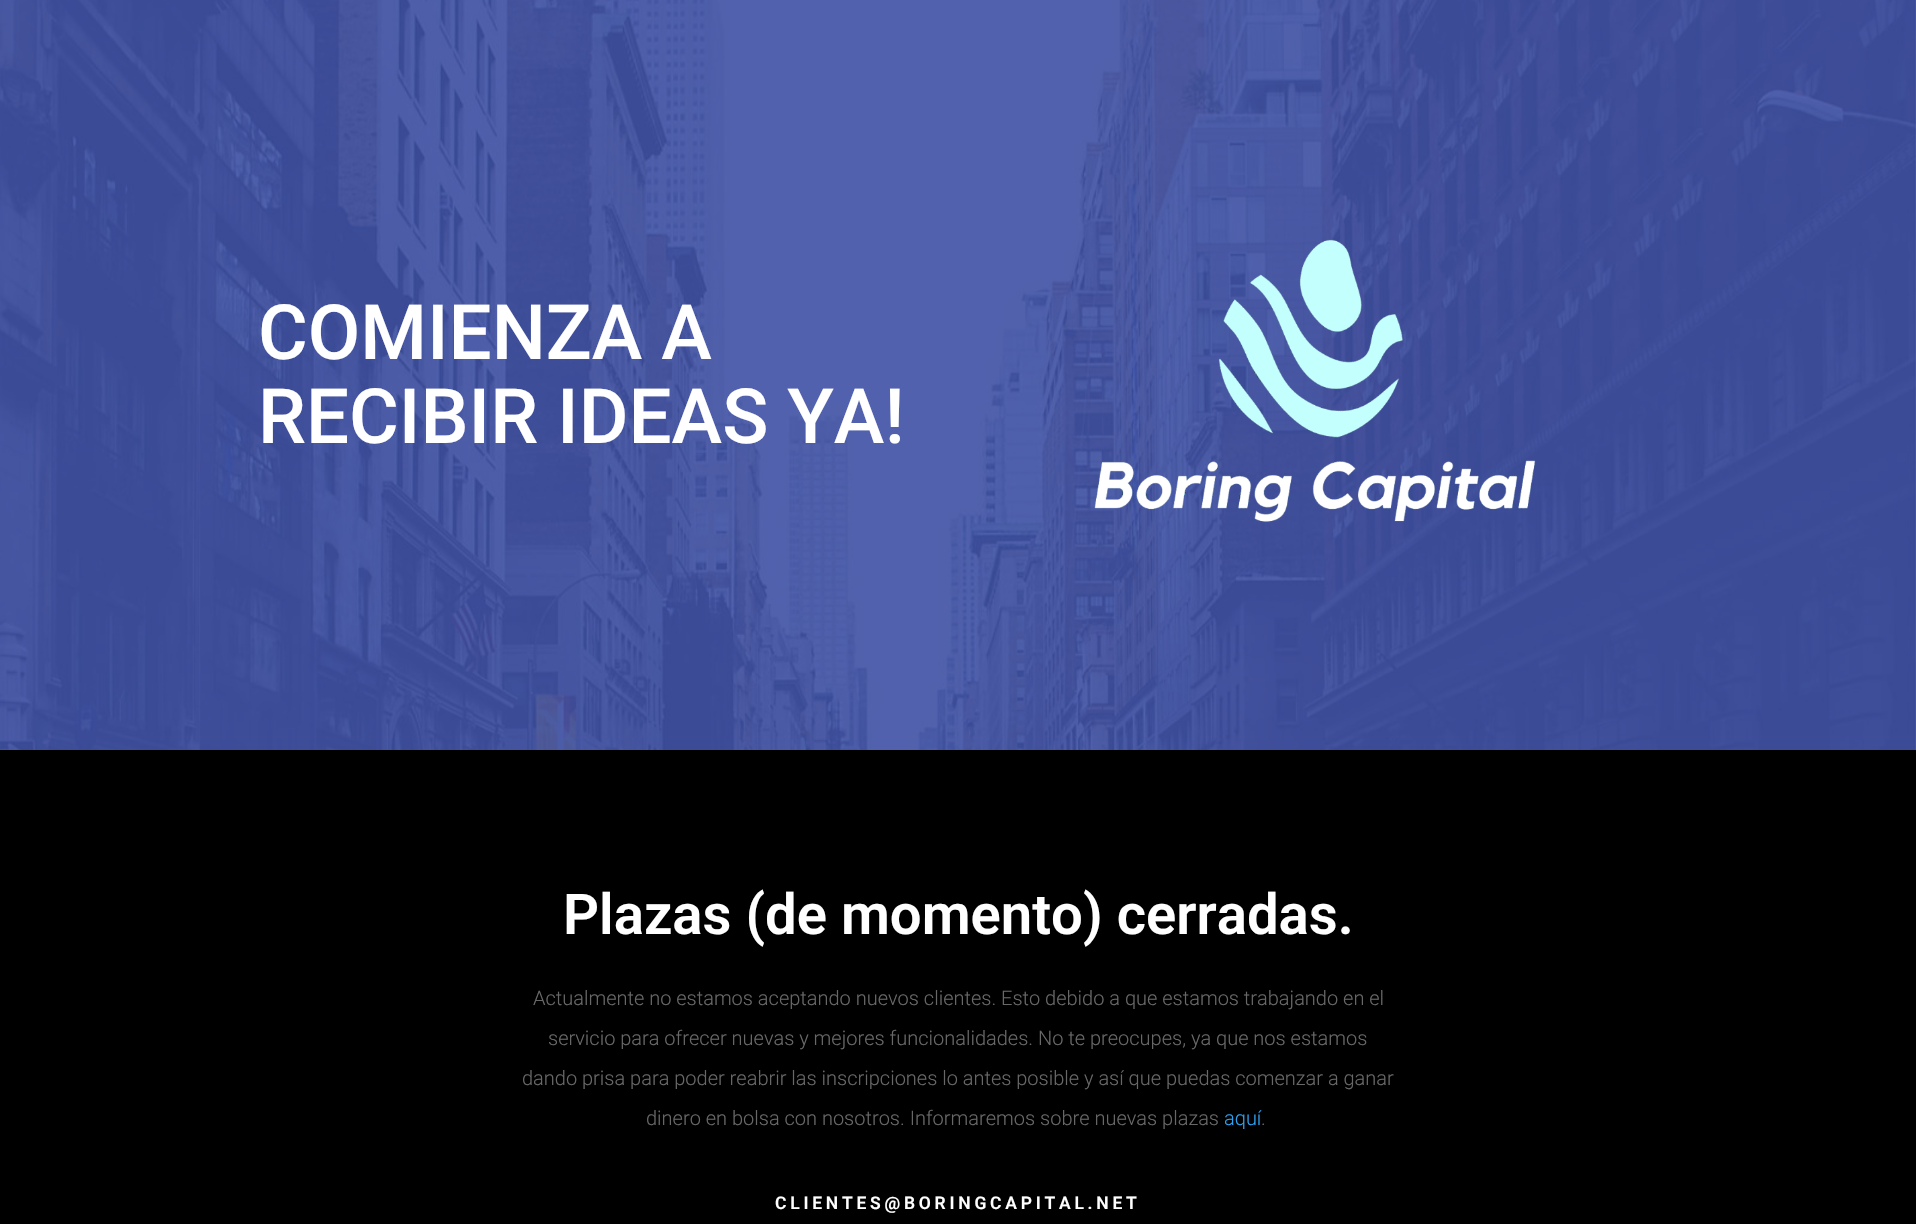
void draw(SkCanvas* canvas) {
  SkPaint paint;
  paint.setAntiAlias(true);
  auto face = [&](const char* family, int weight, float size, bool italic = false) {
    SkFontStyle style(weight, SkFontStyle::kNormal_Width,
      italic ? SkFontStyle::kItalic_Slant : SkFontStyle::kUpright_Slant);
    SkFont result(fontMgr->matchFamilyStyle(family, style), size);
    result.setSubpixel(true);
    return result;
  };
  auto writeSpaced = [&](const char* s, float x, float y, const SkFont& font, const SkPaint& ink, float letter, float word) {
    std::vector<SkGlyphID> glyphs(font.countText(s, strlen(s), SkTextEncoding::kUTF8));
    std::vector<float> xs(glyphs.size());
    font.textToGlyphs(s, strlen(s), SkTextEncoding::kUTF8, glyphs);
    font.getXPos(glyphs, xs, x);
    float extra = 0;
    for (size_t i = 0; i < glyphs.size(); i++) {
      xs[i] += extra;
      extra += letter + word * (glyphs[i] == font.unicharToGlyph(' '));
    }
    canvas->drawTextBlob(SkTextBlob::MakeFromPosHGlyphs(glyphs, xs, y, font), 0, 0, ink);
  };
  auto paste = [&](const char* path, float x, float y, float w, float h) {
    auto image = SkImages::DeferredFromEncodedData(SkData::MakeFromFileName(path));
    canvas->drawImageRect(image, SkRect::MakeXYWH(x, y, w, h), SkSamplingOptions());
  };
  canvas->clear(0xffffffff);
  paste("img/1.png", 0, 0, 1916, 750);
  paste("img/2.png", 1094, 239, 442, 283);
  paint.setColor(0xff000000);
  canvas->drawRect(SkRect::MakeXYWH(0, 750, 1916, 474), paint);
  auto f0 = face("Roboto", 500, 76.25f);
  paint.setColor(0xffffffff);
  canvas->drawString("COMIENZA A", 258, 359, f0, paint);
  canvas->drawString("RECIBIR IDEAS YA!", 258, 443, f0, paint);
  auto f1 = face("Roboto", 600, 56.25f);
  canvas->drawString("Plazas (de momento) cerradas.", 563, 934, f1, paint);
  auto f2 = face("Roboto", 300, 20);
  paint.setColor(0xff686868);
  {
    const struct { const char* s; float x, y; } items[] = {
      {"Actualmente no estamos aceptando nuevos clientes. Esto debido a que estamos trabajando en el", 533, 1005},
      {"servicio para ofrecer nuevas y mejores funcionalidades. No te preocupes, ya que nos estamos", 548, 1045},
      {"dando prisa para poder reabrir las inscripciones lo antes posible y así que puedas comenzar a ganar", 522, 1085},
      {"dinero en bolsa con nosotros. Informaremos sobre nuevas plazas", 646, 1125},
    };
    for (auto [s, x, y] : items) {
      canvas->drawString(s, x, y, f2, paint);
    }
  }
  paint.setColor(0xff2ea3f2);
  canvas->drawString("aquí", 1224, 1125, f2, paint);
  paint.setColor(0xff686868);
  canvas->drawString(".", 1261, 1125, f2, paint);
  auto f3 = face("Roboto", 600, 17.5f);
  paint.setColor(0xffffffff);
  writeSpaced("CLIENTES@BORINGCAPITAL.NET", 775, 1209, f3, paint, 3.75f, 0);
}
